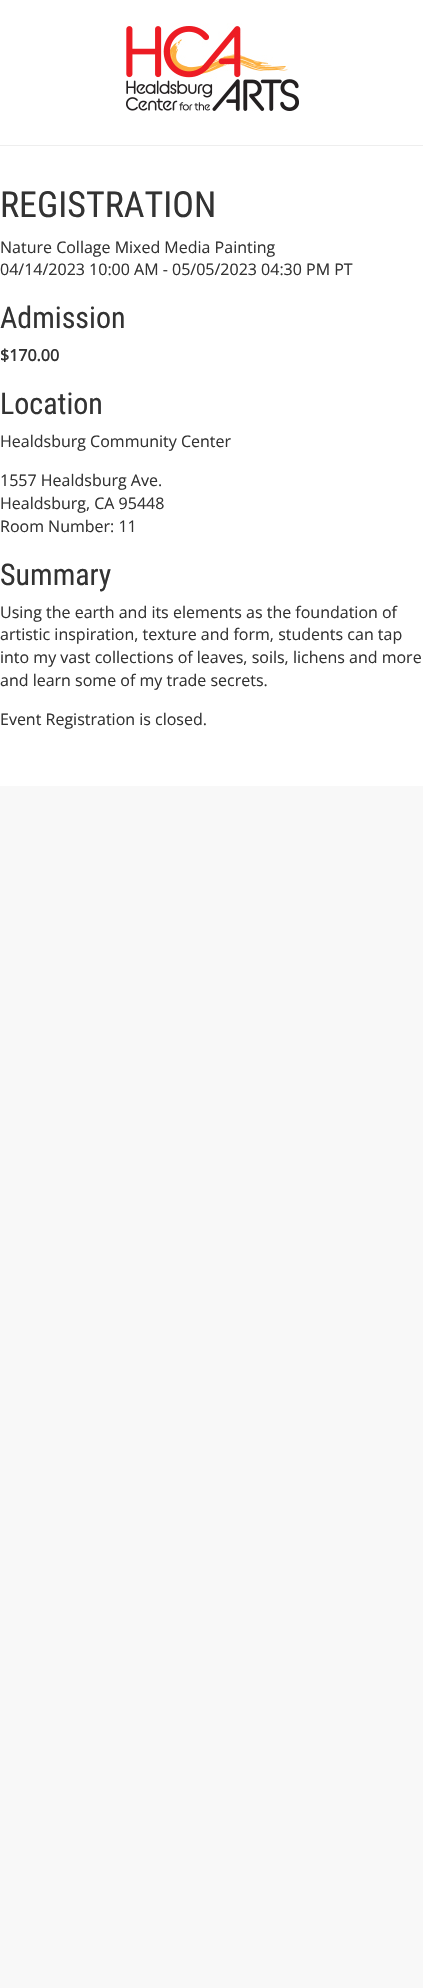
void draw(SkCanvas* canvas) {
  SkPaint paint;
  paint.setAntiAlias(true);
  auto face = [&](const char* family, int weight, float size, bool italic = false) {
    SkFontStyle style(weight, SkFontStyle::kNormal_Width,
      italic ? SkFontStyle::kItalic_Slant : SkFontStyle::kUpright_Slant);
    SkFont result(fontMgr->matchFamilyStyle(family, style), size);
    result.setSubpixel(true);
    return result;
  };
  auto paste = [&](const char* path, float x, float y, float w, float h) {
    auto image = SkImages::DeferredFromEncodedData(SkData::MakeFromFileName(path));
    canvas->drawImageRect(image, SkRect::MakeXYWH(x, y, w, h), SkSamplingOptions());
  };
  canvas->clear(0xfff8f8f8);
  paint.setColor(0xffffffff);
  canvas->drawRect(SkRect::MakeXYWH(0, 0, 423, 786), paint);
  paste("img/1.png", 126, 23, 173, 88);
  paint.setColor(0xffeeeeee);
  canvas->drawRect(SkRect::MakeXYWH(0, 145, 423, 1), paint);
  auto f0 = face("Roboto Condensed", 400, 36);
  paint.setColor(0xff333333);
  canvas->drawString("REGISTRATION", 0, 217, f0, paint);
  auto f1 = face("Open Sans", 400, 16);
  canvas->drawString("Nature Collage Mixed Media Painting", 0, 253, f1, paint);
  canvas->drawString("04/14/2023 10:00 AM - 05/05/2023 04:30 PM PT", 0, 275, f1, paint);
  auto f2 = face("Roboto Condensed", 400, 30);
  canvas->drawString("Admission", 0, 328, f2, paint);
  auto f3 = face("Open Sans", 700, 16);
  canvas->drawString("$170.00", 0, 361, f3, paint);
  canvas->drawString("Location", 0, 414, f2, paint);
  {
    const struct { const char* s; float x, y; } items[] = {
      {"Healdsburg Community Center", 0, 447},
      {"1557 Healdsburg Ave.", 0, 486},
      {"Healdsburg, CA 95448", 0, 509},
      {"Room Number: 11", 0, 532},
    };
    for (auto [s, x, y] : items) {
      canvas->drawString(s, x, y, f1, paint);
    }
  }
  canvas->drawString("Summary", 0, 585, f2, paint);
  {
    const struct { const char* s; float x, y; } items[] = {
      {"Using the earth and its elements as the foundation of", 0, 618},
      {"artistic inspiration, texture and form, students can tap", 0, 640},
      {"into my vast collections of leaves, soils, lichens and more", 0, 663},
      {"and learn some of my trade secrets.", 0, 686},
      {"Event Registration is closed.", 0, 725},
    };
    for (auto [s, x, y] : items) {
      canvas->drawString(s, x, y, f1, paint);
    }
  }
}
